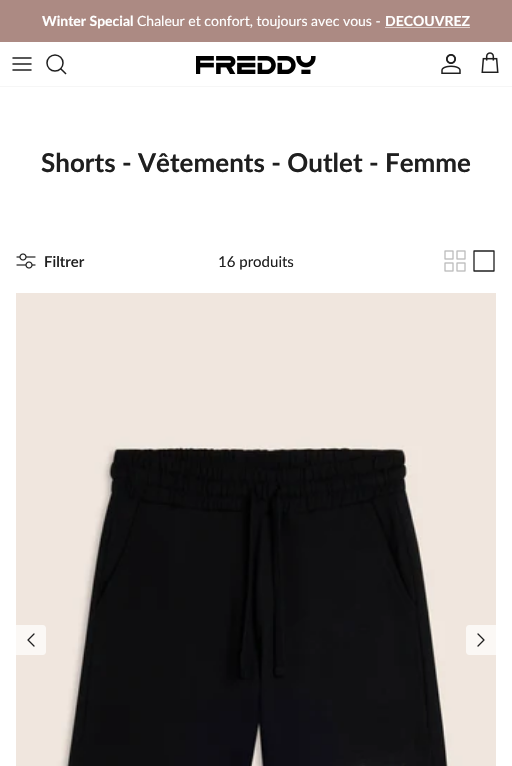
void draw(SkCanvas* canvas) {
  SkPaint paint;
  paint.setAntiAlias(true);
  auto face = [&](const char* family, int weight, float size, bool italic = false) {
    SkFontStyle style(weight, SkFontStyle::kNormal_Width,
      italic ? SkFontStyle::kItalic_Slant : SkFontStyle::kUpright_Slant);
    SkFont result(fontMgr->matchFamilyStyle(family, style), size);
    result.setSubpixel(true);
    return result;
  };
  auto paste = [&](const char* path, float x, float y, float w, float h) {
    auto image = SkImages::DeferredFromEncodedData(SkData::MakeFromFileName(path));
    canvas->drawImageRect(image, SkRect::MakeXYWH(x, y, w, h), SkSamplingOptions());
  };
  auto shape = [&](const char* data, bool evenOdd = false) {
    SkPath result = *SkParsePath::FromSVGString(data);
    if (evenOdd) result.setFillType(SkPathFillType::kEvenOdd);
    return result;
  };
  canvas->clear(0xffffffff);
  {
    const struct { float x, y, w, h; SkColor color; } items[] = {
      {0, 0, 512, 42, 0xffac8a83},
      {385, 27, 85, 1, 0xffded0cd},
      {0, 86, 512, 1, 0xfff6f6f6},
    };
    for (auto [x, y, w, h, color] : items) {
      paint.setColor(color);
      canvas->drawRect(SkRect::MakeXYWH(x, y, w, h), paint);
    }
  }
  paint.setStroke(true);
  paint.setStrokeWidth(1.5f);
  paint.setStrokeCap(SkPaint::kRound_Cap);
  paint.setStrokeJoin(SkPaint::kRound_Join);
  paint.setColor(0xff1f1f1f);
  canvas->drawPath(shape("M13 64H31M13 58H31M13 70H31"), paint);
  paint.setStrokeCap(SkPaint::kButt_Cap);
  paint.setStrokeJoin(SkPaint::kMiter_Join);
  canvas->drawCircle(55, 63, 8, paint);
  paint.setStrokeCap(SkPaint::kSquare_Cap);
  canvas->drawPath(shape("M61 69L65.5 73.5"), paint);
  paste("img/1.png", 196, 56, 120, 18);
  paste("img/2.png", 441, 54, 20, 20);
  paste("img/3.png", 481, 52, 18, 21);
  paste("img/4.png", 16, 253, 20, 16);
  paste("img/5.png", 444, 250, 22, 22);
  paint.setStrokeWidth(1.3f);
  paint.setStrokeCap(SkPaint::kRound_Cap);
  paint.setStrokeJoin(SkPaint::kRound_Join);
  canvas->drawPath(shape("M474 251H494V271H474V251"), paint);
  paste("img/6.png", 16, 293, 480, 473);
  paint.setStroke(false);
  paint.setColor(0xfffbf8f5);
  canvas->drawPath(shape("M16 625H43C44.5 625 46 626.5 46 628V652C46 653.5 44.5 655 43 655H16Z"), paint);
  paint.setStroke(true);
  paint.setColor(0xff1f1f1f);
  canvas->drawPath(shape("M34 646L28 640L34 634"), paint);
  paint.setStroke(false);
  paint.setColor(0xfffbf8f5);
  canvas->drawPath(shape("M469 625H496V655H469C467.5 655 466 653.5 466 652V628C466 626.5 467.5 625 469 625Z"), paint);
  paint.setStroke(true);
  paint.setColor(0xff1f1f1f);
  canvas->drawPath(shape("M478 646L484 640L478 634"), paint);
  auto f0 = face("Lato", 700, 14);
  paint.setStroke(false);
  paint.setColor(0xffffffff);
  canvas->drawString("Winter Special", 42, 26, f0, paint);
  auto f1 = face("Lato", 400, 14);
  canvas->drawString("Chaleur et confort, toujours avec vous -", 137, 26, f1, paint);
  canvas->drawString("DECOUVREZ", 385, 26, f0, paint);
  auto f2 = face("Lato", 700, 26);
  paint.setColor(0xff1f1f1f);
  canvas->drawString("Shorts - Vêtements - Outlet - Femme", 41, 172, f2, paint);
  auto f3 = face("Lato", 600, 15);
  canvas->drawString("Filtrer", 44, 267, f3, paint);
  auto f4 = face("Lato", 400, 15);
  canvas->drawString("16 produits", 218, 267, f4, paint);
}
